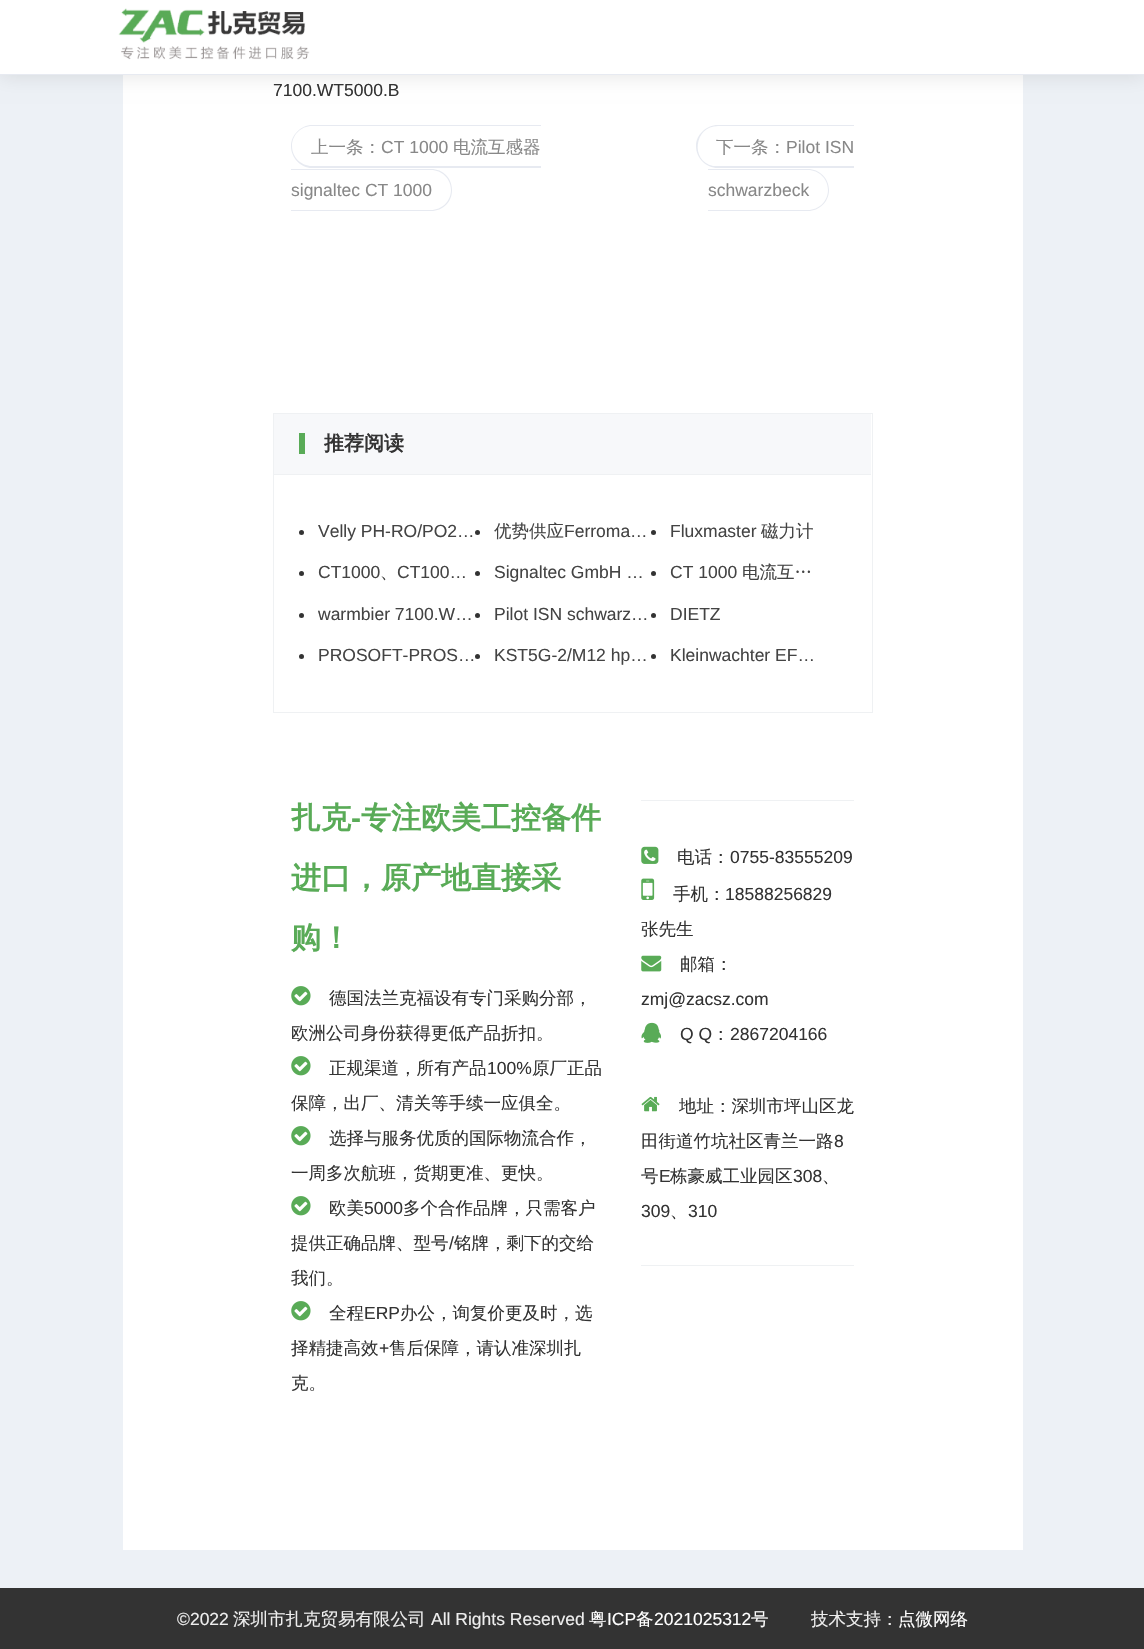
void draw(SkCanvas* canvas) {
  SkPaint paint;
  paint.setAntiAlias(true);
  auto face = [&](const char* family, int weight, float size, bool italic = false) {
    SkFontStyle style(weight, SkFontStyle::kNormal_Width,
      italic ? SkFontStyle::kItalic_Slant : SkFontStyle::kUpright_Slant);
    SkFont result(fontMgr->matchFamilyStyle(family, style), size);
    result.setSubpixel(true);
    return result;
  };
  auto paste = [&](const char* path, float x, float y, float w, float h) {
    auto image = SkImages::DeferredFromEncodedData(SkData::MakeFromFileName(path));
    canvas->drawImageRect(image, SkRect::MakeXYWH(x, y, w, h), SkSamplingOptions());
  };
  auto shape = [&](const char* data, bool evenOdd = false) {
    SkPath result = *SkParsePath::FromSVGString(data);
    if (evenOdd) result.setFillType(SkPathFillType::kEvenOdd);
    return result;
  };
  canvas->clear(0xffedf1f6);
  paint.setColor(0xffffffff);
  canvas->drawRect(SkRect::MakeXYWH(123, 75, 900, 1475), paint);
  paint.setColor(0x1a000000);
  paint.setMaskFilter(SkMaskFilter::MakeBlur(kNormal_SkBlurStyle, 9.5f));
  canvas->drawRect(SkRect::MakeXYWH(0, 1, 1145, 75), paint);
  paint.setMaskFilter(nullptr);
  paint.setColor(0xffffffff);
  canvas->drawRect(SkRect::MakeXYWH(0, 0, 1144, 74), paint);
  paint.setColor(0xffe7eaf1);
  canvas->drawRect(SkRect::MakeXYWH(0, 74, 1144, 1), paint);
  paste("img/1.png", 118, 8, 192, 52);
  canvas->drawPath(shape("M312 125H541V168H312C301 168 291 158 291 146C291 135 301 125 312 125ZM312 126H541V166H312C301 166 292 157 292 146C292 135 301 126 312 126Z", true), paint);
  canvas->drawPath(shape("M291 169H431C443 169 452 178 452 190C452 202 443 211 431 211H291ZM291 170H431C442 170 451 179 451 190C451 201 442 210 431 210H291Z", true), paint);
  canvas->drawPath(shape("M718 125H854V168H718C706 168 696 158 696 146C696 135 706 125 718 125ZM718 126H854V166H713C690 161 694 126 718 126Z", true), paint);
  canvas->drawPath(shape("M708 169H808C819 169 829 178 829 190C829 202 819 211 808 211H708ZM708 170H808C819 170 828 179 828 190C828 201 819 210 808 210H708Z", true), paint);
  paint.setStroke(true);
  paint.setStrokeWidth(1);
  paint.setColor(0xffeff1f3);
  canvas->drawRect(SkRect::MakeXYWH(273.5f, 413.5f, 599, 299), paint);
  paint.setStroke(false);
  {
    const struct { float x, y, w, h; SkColor color; } items[] = {
      {274, 414, 597, 60, 0xfff7f8fa},
      {274, 474, 597, 1, 0xffeff1f3},
      {299, 433, 6, 21, 0xff59ab57},
    };
    for (auto [x, y, w, h, color] : items) {
      paint.setColor(color);
      canvas->drawRect(SkRect::MakeXYWH(x, y, w, h), paint);
    }
  }
  paint.setColor(0xff333333);
  canvas->drawCircle(301.5f, 532.5f, 2.5f, paint);
  canvas->drawCircle(477.5f, 532.5f, 2.5f, paint);
  canvas->drawCircle(653.5f, 532.5f, 2.5f, paint);
  canvas->drawCircle(301.5f, 573.5f, 2.5f, paint);
  canvas->drawCircle(477.5f, 573.5f, 2.5f, paint);
  canvas->drawCircle(653.5f, 573.5f, 2.5f, paint);
  canvas->drawCircle(301.5f, 615.5f, 2.5f, paint);
  canvas->drawCircle(477.5f, 615.5f, 2.5f, paint);
  canvas->drawCircle(653.5f, 615.5f, 2.5f, paint);
  canvas->drawCircle(301.5f, 656.5f, 2.5f, paint);
  canvas->drawCircle(477.5f, 656.5f, 2.5f, paint);
  canvas->drawCircle(653.5f, 656.5f, 2.5f, paint);
  paste("img/2.png", 291, 986, 20, 20);
  paste("img/2.png", 291, 1056, 20, 20);
  paste("img/2.png", 291, 1126, 20, 20);
  paste("img/2.png", 291, 1196, 20, 20);
  paste("img/2.png", 291, 1301, 20, 20);
  paint.setColor(0xffeff1f3);
  canvas->drawRect(SkRect::MakeXYWH(641, 800, 213, 1), paint);
  canvas->drawRect(SkRect::MakeXYWH(641, 1265, 213, 1), paint);
  paste("img/3.png", 641, 846, 18, 18);
  paste("img/4.png", 641, 878, 14, 22);
  paste("img/5.png", 641, 955, 21, 17);
  paste("img/6.png", 641, 1022, 20, 21);
  paste("img/7.png", 641, 1096, 19, 16);
  paint.setColor(0xff333333);
  canvas->drawRect(SkRect::MakeXYWH(0, 1588, 1144, 61), paint);
  auto f0 = face("Liberation Sans", 400, 17.5f);
  canvas->drawString("7100.WT5000.B", 273, 96, f0, paint);
  auto f1 = face("WenQuanYi Zen Hei", 500, 17.5f);
  paint.setColor(0xff888888);
  canvas->drawString("上一条：", 311, 153, f1, paint);
  canvas->drawString("CT 1000", 381, 153, f0, paint);
  canvas->drawString("电流互感器", 453, 153, f1, paint);
  canvas->drawString("signaltec CT 1000", 291, 196, f0, paint);
  canvas->drawString("下一条：", 716, 153, f1, paint);
  canvas->drawString("Pilot ISN", 786, 153, f0, paint);
  canvas->drawString("schwarzbeck", 708, 196, f0, paint);
  auto f2 = face("WenQuanYi Zen Hei", 700, 20);
  paint.setColor(0xff333333);
  canvas->drawString("推荐阅读", 324, 450, f2, paint);
  paint.setColor(0xff444444);
  canvas->drawString("Velly PH-RO/PO2…", 318, 537, f0, paint);
  canvas->drawString("优势供应", 494, 537, f1, paint);
  canvas->drawString("Ferroma…", 564, 537, f0, paint);
  canvas->drawString("Fluxmaster", 670, 537, f0, paint);
  canvas->drawString("磁力计", 761, 537, f1, paint);
  canvas->drawString("CT1000", 318, 578, f0, paint);
  canvas->drawString("、", 380, 578, f1, paint);
  {
    const struct { const char* s; float x, y; } items[] = {
      {"CT100…", 397, 578},
      {"Signaltec GmbH …", 494, 578},
      {"CT 1000", 670, 578},
    };
    for (auto [s, x, y] : items) {
      canvas->drawString(s, x, y, f0, paint);
    }
  }
  canvas->drawString("电流互…", 742, 578, f1, paint);
  {
    const struct { const char* s; float x, y; } items[] = {
      {"warmbier 7100.W…", 318, 620},
      {"Pilot ISN schwarz…", 494, 620},
      {"DIETZ", 670, 620},
      {"PROSOFT-PROS…", 318, 661},
      {"KST5G-2/M12 hp…", 494, 661},
      {"Kleinwachter EF…", 670, 661},
    };
    for (auto [s, x, y] : items) {
      canvas->drawString(s, x, y, f0, paint);
    }
  }
  auto f3 = face("WenQuanYi Zen Hei", 700, 30);
  paint.setColor(0xff59ab57);
  canvas->drawString("扎克", 291, 828, f3, paint);
  auto f4 = face("Liberation Sans", 700, 30);
  canvas->drawString("-", 351, 828, f4, paint);
  {
    const struct { const char* s; float x, y; } items[] = {
      {"专注欧美工控备件", 361, 828},
      {"进口，原产地直接采", 291, 888},
      {"购！", 291, 948},
    };
    for (auto [s, x, y] : items) {
      canvas->drawString(s, x, y, f3, paint);
    }
  }
  paint.setColor(0xff333333);
  {
    const struct { const char* s; float x, y; } items[] = {
      {"德国法兰克福设有专门采购分部，", 329, 1004},
      {"欧洲公司身份获得更低产品折扣。", 291, 1039},
      {"正规渠道，所有产品", 329, 1074},
    };
    for (auto [s, x, y] : items) {
      canvas->drawString(s, x, y, f1, paint);
    }
  }
  canvas->drawString("100%", 487, 1074, f0, paint);
  {
    const struct { const char* s; float x, y; } items[] = {
      {"原厂正品", 532, 1074},
      {"保障，出厂、清关等手续一应俱全。", 291, 1109},
      {"选择与服务优质的国际物流合作，", 329, 1144},
      {"一周多次航班，货期更准、更快。", 291, 1179},
      {"欧美", 329, 1214},
    };
    for (auto [s, x, y] : items) {
      canvas->drawString(s, x, y, f1, paint);
    }
  }
  canvas->drawString("5000", 364, 1214, f0, paint);
  canvas->drawString("多个合作品牌，只需客户", 403, 1214, f1, paint);
  canvas->drawString("提供正确品牌、型号", 291, 1249, f1, paint);
  canvas->drawString("/", 449, 1249, f0, paint);
  {
    const struct { const char* s; float x, y; } items[] = {
      {"铭牌，剩下的交给", 454, 1249},
      {"我们。", 291, 1284},
      {"全程", 329, 1319},
    };
    for (auto [s, x, y] : items) {
      canvas->drawString(s, x, y, f1, paint);
    }
  }
  canvas->drawString("ERP", 364, 1319, f0, paint);
  canvas->drawString("办公，询复价更及时，选", 400, 1319, f1, paint);
  canvas->drawString("择精捷高效", 291, 1354, f1, paint);
  canvas->drawString("+", 379, 1354, f0, paint);
  {
    const struct { const char* s; float x, y; } items[] = {
      {"售后保障，请认准深圳扎", 389, 1354},
      {"克。", 291, 1389},
      {"电话：", 677, 863},
    };
    for (auto [s, x, y] : items) {
      canvas->drawString(s, x, y, f1, paint);
    }
  }
  canvas->drawString("0755-83555209", 730, 863, f0, paint);
  canvas->drawString("手机：", 673, 900, f1, paint);
  canvas->drawString("18588256829", 725, 900, f0, paint);
  canvas->drawString("张先生", 641, 935, f1, paint);
  canvas->drawString("邮箱：", 680, 970, f1, paint);
  canvas->drawString("zmj@zacsz.com", 641, 1005, f0, paint);
  canvas->drawString("Q Q", 680, 1040, f0, paint);
  canvas->drawString("：", 712, 1040, f1, paint);
  canvas->drawString("2867204166", 730, 1040, f0, paint);
  canvas->drawString("地址：深圳市坪山区龙", 679, 1112, f1, paint);
  canvas->drawString("田街道竹坑社区青兰一路", 641, 1147, f1, paint);
  canvas->drawString("8", 834, 1147, f0, paint);
  canvas->drawString("号", 641, 1182, f1, paint);
  canvas->drawString("E", 659, 1182, f0, paint);
  canvas->drawString("栋豪威工业园区", 670, 1182, f1, paint);
  canvas->drawString("308", 793, 1182, f0, paint);
  canvas->drawString("、", 822, 1182, f1, paint);
  canvas->drawString("309", 641, 1217, f0, paint);
  canvas->drawString("、", 670, 1217, f1, paint);
  canvas->drawString("310", 688, 1217, f0, paint);
  paint.setColor(0xffeeeeee);
  canvas->drawString("©2022", 177, 1625, f0, paint);
  canvas->drawString("深圳市扎克贸易有限公司", 233, 1625, f1, paint);
  canvas->drawString("All Rights Reserved", 431, 1625, f0, paint);
  paint.setColor(0xffffffff);
  canvas->drawString("粤", 589, 1625, f1, paint);
  canvas->drawString("ICP", 607, 1625, f0, paint);
  canvas->drawString("备", 636, 1625, f1, paint);
  canvas->drawString("2021025312", 654, 1625, f0, paint);
  canvas->drawString("号", 751, 1625, f1, paint);
  paint.setColor(0xffeeeeee);
  canvas->drawString("技术支持：", 811, 1625, f1, paint);
  paint.setColor(0xffffffff);
  canvas->drawString("点微网络", 898, 1625, f1, paint);
}
